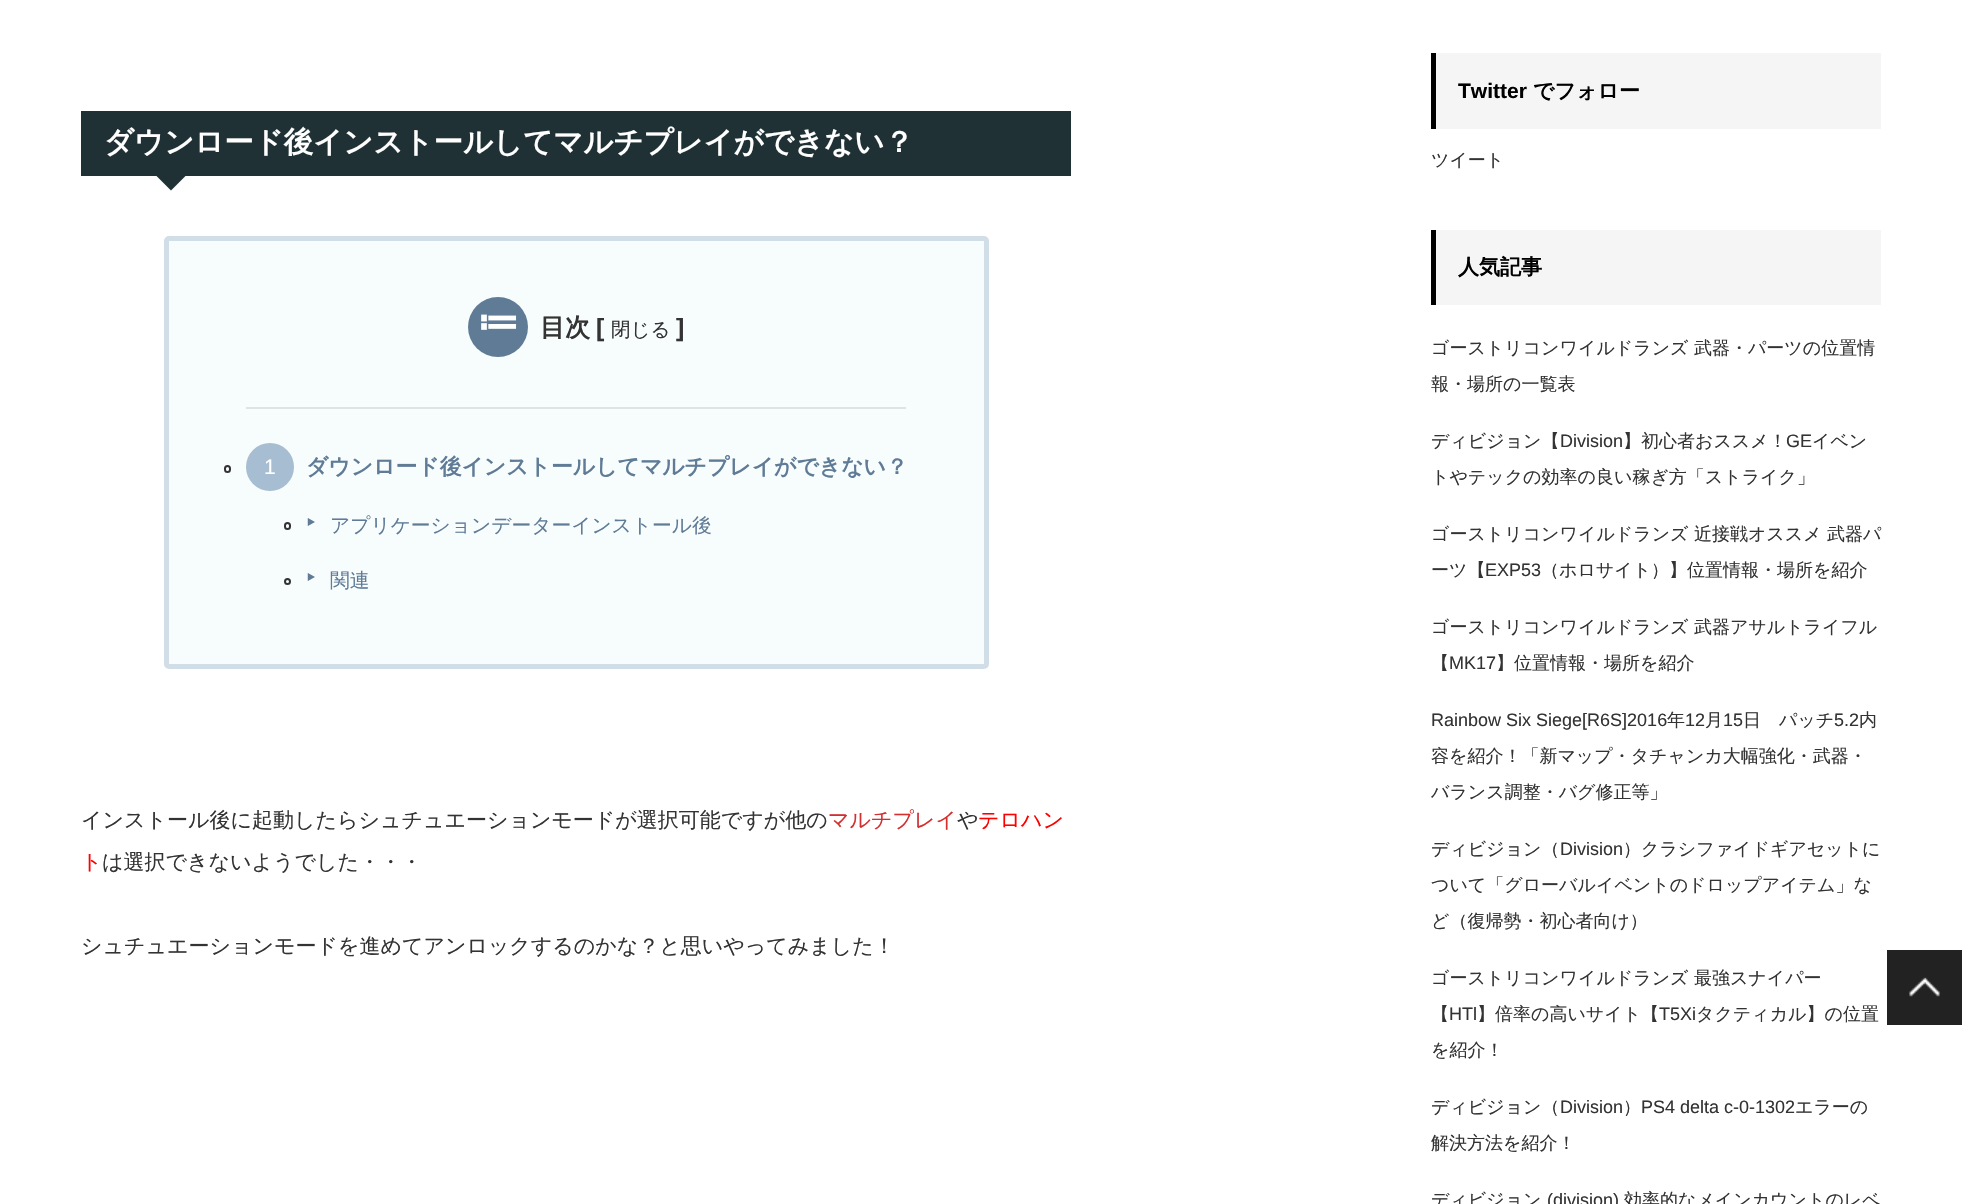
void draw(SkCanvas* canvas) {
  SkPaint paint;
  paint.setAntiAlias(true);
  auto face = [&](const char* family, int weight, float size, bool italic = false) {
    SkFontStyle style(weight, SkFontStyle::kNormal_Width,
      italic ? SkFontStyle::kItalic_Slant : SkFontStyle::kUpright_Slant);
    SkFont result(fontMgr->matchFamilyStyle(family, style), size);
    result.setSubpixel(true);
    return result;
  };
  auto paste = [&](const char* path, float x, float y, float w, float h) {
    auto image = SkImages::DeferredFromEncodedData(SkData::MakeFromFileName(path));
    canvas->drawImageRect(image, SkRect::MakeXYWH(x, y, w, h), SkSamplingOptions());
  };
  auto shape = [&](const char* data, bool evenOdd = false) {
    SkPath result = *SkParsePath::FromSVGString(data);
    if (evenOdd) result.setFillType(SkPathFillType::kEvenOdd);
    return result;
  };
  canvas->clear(0xffffffff);
  paint.setColor(0xff1f3134);
  canvas->drawRect(SkRect::MakeXYWH(81, 111, 990, 65), paint);
  canvas->drawPath(shape("M156 175.5H186L171 190.5Z"), paint);
  paint.setColor(0xfff7fcfd);
  canvas->drawRoundRect(SkRect::MakeXYWH(164, 236, 825, 433), 5, 5, paint);
  paint.setStroke(true);
  paint.setStrokeWidth(5);
  paint.setColor(0x33406990);
  canvas->drawRoundRect(SkRect::MakeXYWH(166.5f, 238.5f, 820, 428), 2.5f, 2.5f, paint);
  paint.setStroke(false);
  paint.setColor(0xff5f7b96);
  canvas->drawCircle(498, 327, 30, paint);
  paint.setColor(0xffdee3e4);
  canvas->drawRect(SkRect::MakeXYWH(246, 407, 660, 2), paint);
  paint.setColor(0xffa6bdd2);
  canvas->drawCircle(270, 467, 24, paint);
  paint.setStroke(true);
  paint.setStrokeWidth(2);
  paint.setColor(0xff333333);
  canvas->drawRoundRect(SkRect::MakeXYWH(225, 466, 5, 6), 2.5f, 2.5f, paint);
  canvas->drawRoundRect(SkRect::MakeXYWH(285, 523, 5, 6), 2.5f, 2.5f, paint);
  canvas->drawCircle(287.5f, 581.5f, 2.5f, paint);
  paint.setStroke(false);
  {
    const struct { float x, y, w, h; SkColor color; } items[] = {
      {1436, 53, 445, 76, 0xfff5f5f5},
      {1431, 53, 5, 76, 0xff000000},
      {1436, 230, 445, 75, 0xfff5f5f5},
      {1431, 230, 5, 75, 0xff000000},
      {1887, 950, 75, 75, 0xff222222},
    };
    for (auto [x, y, w, h, color] : items) {
      paint.setColor(color);
      canvas->drawRect(SkRect::MakeXYWH(x, y, w, h), paint);
    }
  }
  paste("img/1.png", 1909, 977, 31, 20);
  auto f0 = face("WenQuanYi Zen Hei", 700, 29.4f);
  paint.setColor(0xffffffff);
  canvas->drawString("ダウンロード後インストールしてマルチプレイができない？", 104, 152, f0, paint);
  auto f1 = face("DejaVu Sans", 700, 42);
  canvas->drawString("≔", 477, 336, f1, paint);
  auto f2 = face("WenQuanYi Zen Hei", 700, 25);
  paint.setColor(0xff333333);
  canvas->drawString("目次", 540, 336, f2, paint);
  auto f3 = face("Liberation Sans", 700, 25);
  canvas->drawString("[", 596, 336, f3, paint);
  auto f4 = face("WenQuanYi Zen Hei", 500, 19.5f);
  canvas->drawString("閉じる", 611, 336, f4, paint);
  canvas->drawString("]", 676, 336, f3, paint);
  auto f5 = face("WenQuanYi Zen Hei", 700, 21.85f);
  paint.setColor(0xff5f7b96);
  canvas->drawString("ダウンロード後インストールしてマルチプレイができない？", 306, 474, f5, paint);
  auto f6 = face("Liberation Sans", 400, 21);
  paint.setColor(0xffffffff);
  canvas->drawString("1", 264, 474, f6, paint);
  auto f7 = face("Noto Sans", 400, 27);
  paint.setColor(0xff5f7b96);
  canvas->drawString("‣", 306, 532, f7, paint);
  auto f8 = face("WenQuanYi Zen Hei", 500, 19.75f);
  canvas->drawString("アプリケーションデーターインストール後", 330, 532, f8, paint);
  canvas->drawString("‣", 306, 587, f7, paint);
  canvas->drawString("関連", 330, 587, f8, paint);
  auto f9 = face("WenQuanYi Zen Hei", 500, 21);
  paint.setColor(0xff333333);
  canvas->drawString("インストール後に起動したらシュチュエーションモードが選択可能ですが他の", 81, 827, f9, paint);
  paint.setColor(0xffd32f2f);
  canvas->drawString("マルチプレイ", 828, 827, f9, paint);
  paint.setColor(0xff333333);
  canvas->drawString("や", 957, 827, f9, paint);
  paint.setColor(0xffff0000);
  canvas->drawString("テロハン", 978, 827, f9, paint);
  canvas->drawString("ト", 81, 869, f9, paint);
  paint.setColor(0xff333333);
  canvas->drawString("は選択できないようでした・・・", 102, 869, f9, paint);
  canvas->drawString("シュチュエーションモードを進めてアンロックするのかな？と思いやってみました！", 81, 953, f9, paint);
  auto f10 = face("Liberation Sans", 700, 21);
  paint.setColor(0xff000000);
  canvas->drawString("Twitter", 1458, 98, f10, paint);
  auto f11 = face("WenQuanYi Zen Hei", 700, 21);
  canvas->drawString("でフォロー", 1533, 98, f11, paint);
  auto f12 = face("WenQuanYi Zen Hei", 500, 18);
  paint.setColor(0xff333333);
  canvas->drawString("ツイート", 1431, 166, f12, paint);
  paint.setColor(0xff000000);
  canvas->drawString("人気記事", 1458, 274, f11, paint);
  paint.setColor(0xff333333);
  {
    const struct { const char* s; float x, y; } items[] = {
      {"ゴーストリコンワイルドランズ 武器・パーツの位置情", 1431, 354},
      {"報・場所の一覧表", 1431, 390},
      {"ディビジョン【", 1431, 447},
    };
    for (auto [s, x, y] : items) {
      canvas->drawString(s, x, y, f12, paint);
    }
  }
  auto f13 = face("Liberation Sans", 400, 18);
  canvas->drawString("Division", 1560, 447, f13, paint);
  canvas->drawString("】初心者おススメ！", 1623, 447, f12, paint);
  canvas->drawString("GE", 1786, 447, f13, paint);
  {
    const struct { const char* s; float x, y; } items[] = {
      {"イベン", 1812, 447},
      {"トやテックの効率の良い稼ぎ方「ストライク」", 1431, 483},
      {"ゴーストリコンワイルドランズ 近接戦オススメ 武器パ", 1431, 540},
      {"ーツ【", 1431, 576},
    };
    for (auto [s, x, y] : items) {
      canvas->drawString(s, x, y, f12, paint);
    }
  }
  canvas->drawString("EXP53", 1485, 576, f13, paint);
  {
    const struct { const char* s; float x, y; } items[] = {
      {"（ホロサイト）】位置情報・場所を紹介", 1541, 576},
      {"ゴーストリコンワイルドランズ 武器アサルトライフル", 1431, 633},
      {"【", 1431, 669},
    };
    for (auto [s, x, y] : items) {
      canvas->drawString(s, x, y, f12, paint);
    }
  }
  canvas->drawString("MK17", 1449, 669, f13, paint);
  canvas->drawString("】位置情報・場所を紹介", 1496, 669, f12, paint);
  canvas->drawString("Rainbow Six Siege[R6S]2016", 1431, 726, f13, paint);
  canvas->drawString("年", 1667, 726, f12, paint);
  canvas->drawString("12", 1685, 726, f13, paint);
  canvas->drawString("月", 1705, 726, f12, paint);
  canvas->drawString("15", 1723, 726, f13, paint);
  canvas->drawString("日　パッチ", 1743, 726, f12, paint);
  canvas->drawString("5.2", 1834, 726, f13, paint);
  {
    const struct { const char* s; float x, y; } items[] = {
      {"内", 1859, 726},
      {"容を紹介！「新マップ・タチャンカ大幅強化・武器・", 1431, 762},
      {"バランス調整・バグ修正等」", 1431, 798},
      {"ディビジョン（", 1431, 855},
    };
    for (auto [s, x, y] : items) {
      canvas->drawString(s, x, y, f12, paint);
    }
  }
  canvas->drawString("Division", 1560, 855, f13, paint);
  {
    const struct { const char* s; float x, y; } items[] = {
      {"）クラシファイドギアセットに", 1623, 855},
      {"ついて「グローバルイベントのドロップアイテム」な", 1431, 891},
      {"ど（復帰勢・初心者向け）", 1431, 927},
      {"ゴーストリコンワイルドランズ 最強スナイパー", 1431, 984},
      {"【", 1431, 1020},
    };
    for (auto [s, x, y] : items) {
      canvas->drawString(s, x, y, f12, paint);
    }
  }
  canvas->drawString("HTl", 1449, 1020, f13, paint);
  canvas->drawString("】倍率の高いサイト【", 1477, 1020, f12, paint);
  canvas->drawString("T5Xi", 1659, 1020, f13, paint);
  {
    const struct { const char* s; float x, y; } items[] = {
      {"タクティカル】の位置", 1696, 1020},
      {"を紹介！", 1431, 1056},
      {"ディビジョン（", 1431, 1113},
    };
    for (auto [s, x, y] : items) {
      canvas->drawString(s, x, y, f12, paint);
    }
  }
  canvas->drawString("Division", 1560, 1113, f13, paint);
  canvas->drawString("）", 1623, 1113, f12, paint);
  canvas->drawString("PS4 delta c-0-1302", 1641, 1113, f13, paint);
  {
    const struct { const char* s; float x, y; } items[] = {
      {"エラーの", 1795, 1113},
      {"解決方法を紹介！", 1431, 1149},
      {"ディビジョン", 1431, 1206},
    };
    for (auto [s, x, y] : items) {
      canvas->drawString(s, x, y, f12, paint);
    }
  }
  canvas->drawString("(division)", 1547, 1206, f13, paint);
  canvas->drawString("効率的なメインカウントのレベ", 1624, 1206, f12, paint);
}
